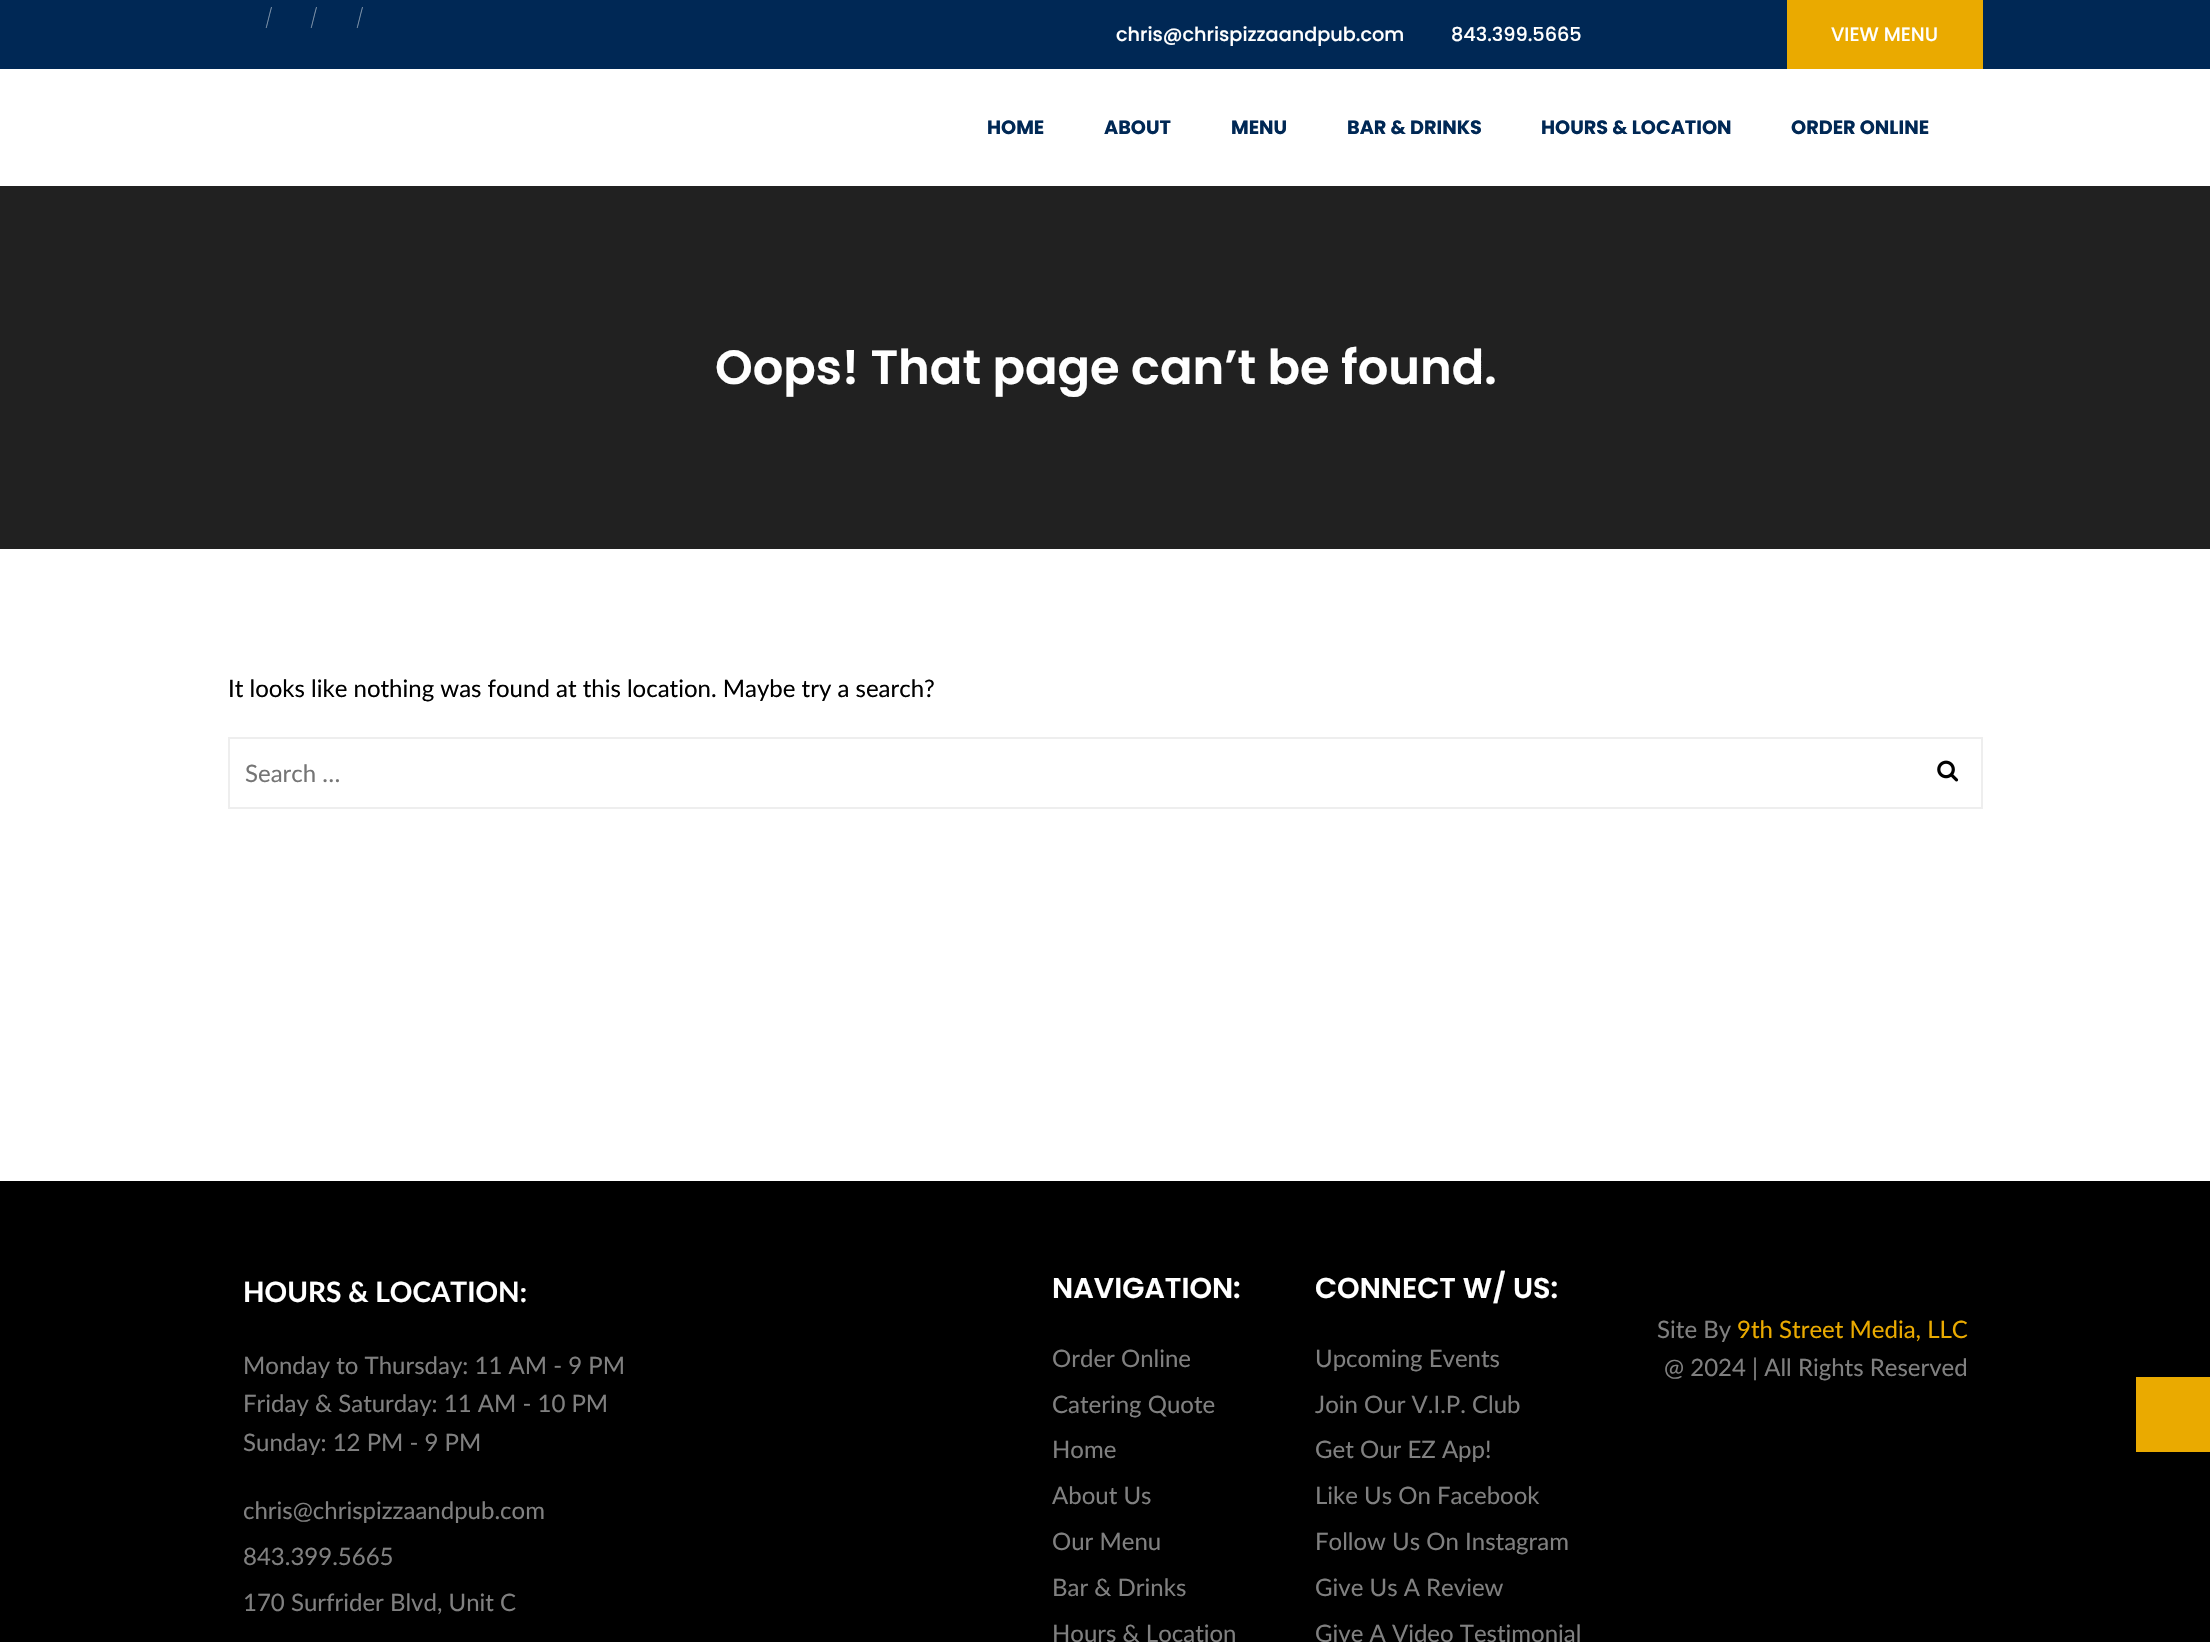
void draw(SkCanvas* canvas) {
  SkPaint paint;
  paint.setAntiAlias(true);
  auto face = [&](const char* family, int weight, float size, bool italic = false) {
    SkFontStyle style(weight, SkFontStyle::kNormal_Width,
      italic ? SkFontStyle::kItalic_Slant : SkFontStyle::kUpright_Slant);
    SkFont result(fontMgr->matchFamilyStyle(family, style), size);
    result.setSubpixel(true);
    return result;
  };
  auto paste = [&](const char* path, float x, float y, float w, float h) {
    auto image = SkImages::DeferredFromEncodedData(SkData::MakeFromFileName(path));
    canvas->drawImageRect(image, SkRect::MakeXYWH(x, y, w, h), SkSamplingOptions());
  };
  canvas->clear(0xffffffff);
  {
    const struct { float x, y, w, h; SkColor color; } items[] = {
      {0, 0, 2210, 69, 0xff002855},
      {1787, 0, 196, 69, 0xffeaaa00},
      {0, 186, 2210, 363, 0xff212121},
    };
    for (auto [x, y, w, h, color] : items) {
      paint.setColor(color);
      canvas->drawRect(SkRect::MakeXYWH(x, y, w, h), paint);
    }
  }
  paint.setStroke(true);
  paint.setStrokeWidth(2);
  paint.setColor(0xffeeeeee);
  canvas->drawRect(SkRect::MakeXYWH(229, 738, 1753, 70), paint);
  paste("img/1.png", 1937, 760, 22, 22);
  paint.setStroke(false);
  paint.setColor(0xff000000);
  canvas->drawRect(SkRect::MakeXYWH(0, 1181, 2210, 461), paint);
  paint.setColor(0xffeaaa00);
  canvas->drawRect(SkRect::MakeXYWH(2136, 1377, 74, 75), paint);
  auto f0 = face("Poppins", 200, 19.25f);
  paint.setColor(0xff8094aa);
  {
    const struct { const char* s; float x, y; } items[] = {
      {"/", 265, 25},
      {"/", 310, 25},
      {"/", 356, 25},
    };
    for (auto [s, x, y] : items) {
      canvas->drawString(s, x, y, f0, paint);
    }
  }
  auto f1 = face("Poppins", 500, 19.25f);
  paint.setColor(0xffffffff);
  {
    const struct { const char* s; float x, y; } items[] = {
      {"chris@chrispizzaandpub.com", 1116, 41},
      {"843.399.5665", 1451, 41},
      {"VIEW MENU", 1831, 41},
    };
    for (auto [s, x, y] : items) {
      canvas->drawString(s, x, y, f1, paint);
    }
  }
  auto f2 = face("Poppins", 700, 19.25f);
  paint.setColor(0xff002855);
  {
    const struct { const char* s; float x, y; } items[] = {
      {"HOME", 987, 134},
      {"ABOUT", 1104, 134},
      {"MENU", 1231, 134},
      {"BAR & DRINKS", 1347, 134},
      {"HOURS & LOCATION", 1541, 134},
      {"ORDER ONLINE", 1791, 134},
    };
    for (auto [s, x, y] : items) {
      canvas->drawString(s, x, y, f2, paint);
    }
  }
  auto f3 = face("Poppins", 600, 48);
  paint.setColor(0xffffffff);
  canvas->drawString("Oops! That page can’t be found.", 715, 384, f3, paint);
  auto f4 = face("Lato", 400, 24);
  paint.setColor(0xff000000);
  canvas->drawString("It looks like nothing was found at this location. Maybe try a search?", 228, 697, f4, paint);
  paint.setColor(0xff757575);
  canvas->drawString("Search …", 245, 782, f4, paint);
  auto f5 = face("Lato", 700, 28);
  paint.setColor(0xffffffff);
  canvas->drawString("HOURS & LOCATION:", 243, 1302, f5, paint);
  paint.setColor(0xff808080);
  {
    const struct { const char* s; float x, y; } items[] = {
      {"Monday to Thursday: 11 AM - 9 PM", 243, 1374},
      {"Friday & Saturday: 11 AM - 10 PM", 243, 1412},
      {"Sunday: 12 PM - 9 PM", 243, 1451},
      {"chris@chrispizzaandpub.com", 243, 1519},
      {"843.399.5665", 243, 1565},
      {"170 Surfrider Blvd, Unit C", 243, 1611},
    };
    for (auto [s, x, y] : items) {
      canvas->drawString(s, x, y, f4, paint);
    }
  }
  auto f6 = face("Poppins", 600, 28.75f);
  paint.setColor(0xffffffff);
  canvas->drawString("NAVIGATION:", 1052, 1298, f6, paint);
  paint.setColor(0xff808080);
  {
    const struct { const char* s; float x, y; } items[] = {
      {"Order Online", 1052, 1367},
      {"Catering Quote", 1052, 1413},
      {"Home", 1052, 1458},
      {"About Us", 1052, 1504},
      {"Our Menu", 1052, 1550},
      {"Bar & Drinks", 1052, 1596},
      {"Hours & Location", 1052, 1642},
    };
    for (auto [s, x, y] : items) {
      canvas->drawString(s, x, y, f4, paint);
    }
  }
  paint.setColor(0xffffffff);
  canvas->drawString("CONNECT W/ US:", 1315, 1298, f6, paint);
  paint.setColor(0xff808080);
  {
    const struct { const char* s; float x, y; } items[] = {
      {"Upcoming Events", 1315, 1367},
      {"Join Our V.I.P. Club", 1315, 1413},
      {"Get Our EZ App!", 1315, 1458},
      {"Like Us On Facebook", 1315, 1504},
      {"Follow Us On Instagram", 1315, 1550},
      {"Give Us A Review", 1315, 1596},
      {"Give A Video Testimonial", 1315, 1642},
      {"Site By", 1657, 1338},
    };
    for (auto [s, x, y] : items) {
      canvas->drawString(s, x, y, f4, paint);
    }
  }
  paint.setColor(0xffeaaa00);
  canvas->drawString("9th Street Media, LLC", 1737, 1338, f4, paint);
  paint.setColor(0xff808080);
  canvas->drawString("@ 2024 | All Rights Reserved", 1664, 1376, f4, paint);
}
